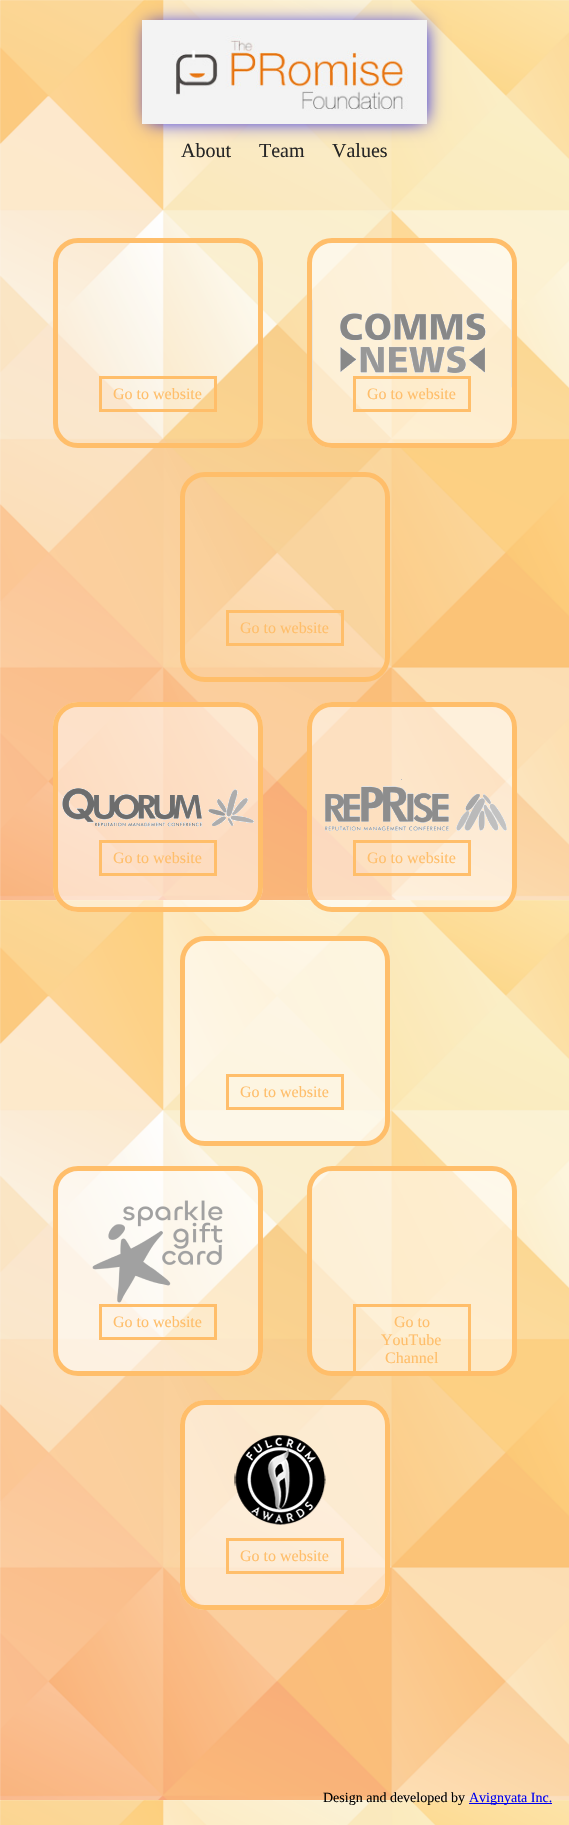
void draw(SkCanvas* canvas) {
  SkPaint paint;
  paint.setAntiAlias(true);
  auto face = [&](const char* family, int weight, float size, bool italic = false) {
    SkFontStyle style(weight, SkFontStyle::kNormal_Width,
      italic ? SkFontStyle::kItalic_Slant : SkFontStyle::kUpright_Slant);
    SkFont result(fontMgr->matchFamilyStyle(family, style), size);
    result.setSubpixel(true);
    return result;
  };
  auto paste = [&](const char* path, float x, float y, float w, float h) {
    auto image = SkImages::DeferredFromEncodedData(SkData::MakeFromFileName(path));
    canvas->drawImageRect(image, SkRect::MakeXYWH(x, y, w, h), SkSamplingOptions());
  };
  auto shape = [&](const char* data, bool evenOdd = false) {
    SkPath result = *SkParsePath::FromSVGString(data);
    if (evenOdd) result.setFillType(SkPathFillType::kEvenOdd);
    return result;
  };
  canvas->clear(0xffffffff);
  paste("img/1.png", 0, 0, 569, 1825);
  paint.setColor(0xff0000ee);
  paint.setMaskFilter(SkMaskFilter::MakeBlur(kNormal_SkBlurStyle, 9));
  canvas->drawRect(SkRect::MakeXYWH(148, 25, 277, 96), paint);
  paint.setMaskFilter(nullptr);
  paste("img/2.png", 142, 20, 285, 104);
  paint.setStroke(true);
  paint.setStrokeWidth(5);
  paint.setColor(0xffffbe6a);
  canvas->drawRoundRect(SkRect::MakeXYWH(55.5f, 240.5f, 205, 205), 22.5f, 22.5f, paint);
  paint.setStrokeWidth(3);
  canvas->drawRect(SkRect::MakeXYWH(100.5f, 377.5f, 115, 33), paint);
  paint.setStroke(false);
  paint.setColor(0x85ffffff);
  canvas->drawRoundRect(SkRect::MakeXYWH(307, 238, 210, 210), 25, 25, paint);
  paste("img/3.png", 312, 299, 200, 92);
  paint.setStroke(true);
  paint.setStrokeWidth(5);
  paint.setColor(0xffffbe6a);
  canvas->drawRoundRect(SkRect::MakeXYWH(309.5f, 240.5f, 205, 205), 22.5f, 22.5f, paint);
  paint.setStrokeWidth(3);
  canvas->drawRect(SkRect::MakeXYWH(354.5f, 377.5f, 115, 33), paint);
  paint.setStrokeWidth(5);
  canvas->drawRoundRect(SkRect::MakeXYWH(182.5f, 474.5f, 205, 205), 22.5f, 22.5f, paint);
  paint.setStrokeWidth(3);
  canvas->drawRect(SkRect::MakeXYWH(227.5f, 611.5f, 115, 33), paint);
  paint.setStroke(false);
  paint.setColor(0x85ffffff);
  canvas->drawRoundRect(SkRect::MakeXYWH(53, 702, 210, 210), 25, 25, paint);
  paste("img/4.png", 62, 788, 192, 39);
  paint.setStroke(true);
  paint.setStrokeWidth(5);
  paint.setColor(0xffffbe6a);
  canvas->drawRoundRect(SkRect::MakeXYWH(55.5f, 704.5f, 205, 205), 22.5f, 22.5f, paint);
  paint.setStrokeWidth(3);
  canvas->drawRect(SkRect::MakeXYWH(100.5f, 841.5f, 115, 33), paint);
  paint.setStroke(false);
  paint.setColor(0x85ffffff);
  canvas->drawRoundRect(SkRect::MakeXYWH(307, 702, 210, 210), 25, 25, paint);
  paste("img/5.png", 325, 779, 182, 52);
  paint.setStroke(true);
  paint.setStrokeWidth(5);
  paint.setColor(0xffffbe6a);
  canvas->drawRoundRect(SkRect::MakeXYWH(309.5f, 704.5f, 205, 205), 22.5f, 22.5f, paint);
  paint.setStrokeWidth(3);
  canvas->drawRect(SkRect::MakeXYWH(354.5f, 841.5f, 115, 33), paint);
  paint.setStroke(false);
  paint.setColor(0x85ffffff);
  canvas->drawRoundRect(SkRect::MakeXYWH(182.5f, 938.5f, 205, 205), 22.5f, 22.5f, paint);
  paint.setStroke(true);
  paint.setStrokeWidth(5);
  paint.setColor(0xffffbe6a);
  canvas->drawRoundRect(SkRect::MakeXYWH(182.5f, 938.5f, 205, 205), 22.5f, 22.5f, paint);
  paint.setStrokeWidth(3);
  canvas->drawRect(SkRect::MakeXYWH(227.5f, 1075.5f, 115, 33), paint);
  paint.setStroke(false);
  paint.setColor(0x85ffffff);
  canvas->drawRoundRect(SkRect::MakeXYWH(53, 1166, 210, 210), 25, 25, paint);
  paste("img/6.png", 92, 1200, 131, 103);
  paint.setStroke(true);
  paint.setStrokeWidth(5);
  paint.setColor(0xffffbe6a);
  canvas->drawRoundRect(SkRect::MakeXYWH(55.5f, 1168.5f, 205, 205), 22.5f, 22.5f, paint);
  paint.setStrokeWidth(3);
  canvas->drawRect(SkRect::MakeXYWH(100.5f, 1305.5f, 115, 33), paint);
  paint.setStroke(false);
  paint.setColor(0x85ffffff);
  canvas->drawRoundRect(SkRect::MakeXYWH(309.5f, 1168.5f, 205, 205), 22.5f, 22.5f, paint);
  paint.setStroke(true);
  paint.setStrokeWidth(5);
  paint.setColor(0xffffbe6a);
  canvas->drawRoundRect(SkRect::MakeXYWH(309.5f, 1168.5f, 205, 205), 22.5f, 22.5f, paint);
  paint.setStroke(false);
  canvas->drawPath(shape("M353 1304V1371H356V1307H468V1371H471V1304Z"), paint);
  paint.setColor(0x85ffffff);
  canvas->drawRoundRect(SkRect::MakeXYWH(180, 1400, 210, 210), 25, 25, paint);
  paste("img/7.png", 234, 1435, 92, 90);
  paint.setStroke(true);
  paint.setColor(0xffffbe6a);
  canvas->drawRoundRect(SkRect::MakeXYWH(182.5f, 1402.5f, 205, 205), 22.5f, 22.5f, paint);
  paint.setStrokeWidth(3);
  canvas->drawRect(SkRect::MakeXYWH(227.5f, 1539.5f, 115, 33), paint);
  paint.setStroke(false);
  paint.setColor(0xff0000ee);
  canvas->drawRect(SkRect::MakeXYWH(469, 1803, 83, 1), paint);
  auto f0 = face("Liberation Serif", 400, 20);
  paint.setColor(0xff272727);
  {
    const struct { const char* s; float x, y; } items[] = {
      {"About", 181, 157},
      {"Team", 259, 157},
      {"Values", 332, 157},
    };
    for (auto [s, x, y] : items) {
      canvas->drawString(s, x, y, f0, paint);
    }
  }
  auto f1 = face("Liberation Serif", 400, 16);
  paint.setColor(0xffffbe6a);
  {
    const struct { const char* s; float x, y; } items[] = {
      {"Go to website", 113, 399},
      {"Go to website", 367, 399},
      {"Go to website", 240, 633},
      {"Go to website", 113, 863},
      {"Go to website", 367, 863},
      {"Go to website", 240, 1097},
      {"Go to website", 113, 1327},
      {"Go to", 394, 1327},
      {"YouTube", 381, 1345},
      {"Channel", 385, 1363},
      {"Go to website", 240, 1561},
    };
    for (auto [s, x, y] : items) {
      canvas->drawString(s, x, y, f1, paint);
    }
  }
  auto f2 = face("Liberation Serif", 400, 14);
  paint.setColor(0xff000000);
  canvas->drawString("Design and developed by", 323, 1802, f2, paint);
  paint.setColor(0xff0000ee);
  canvas->drawString("Avignyata Inc.", 469, 1802, f2, paint);
}
